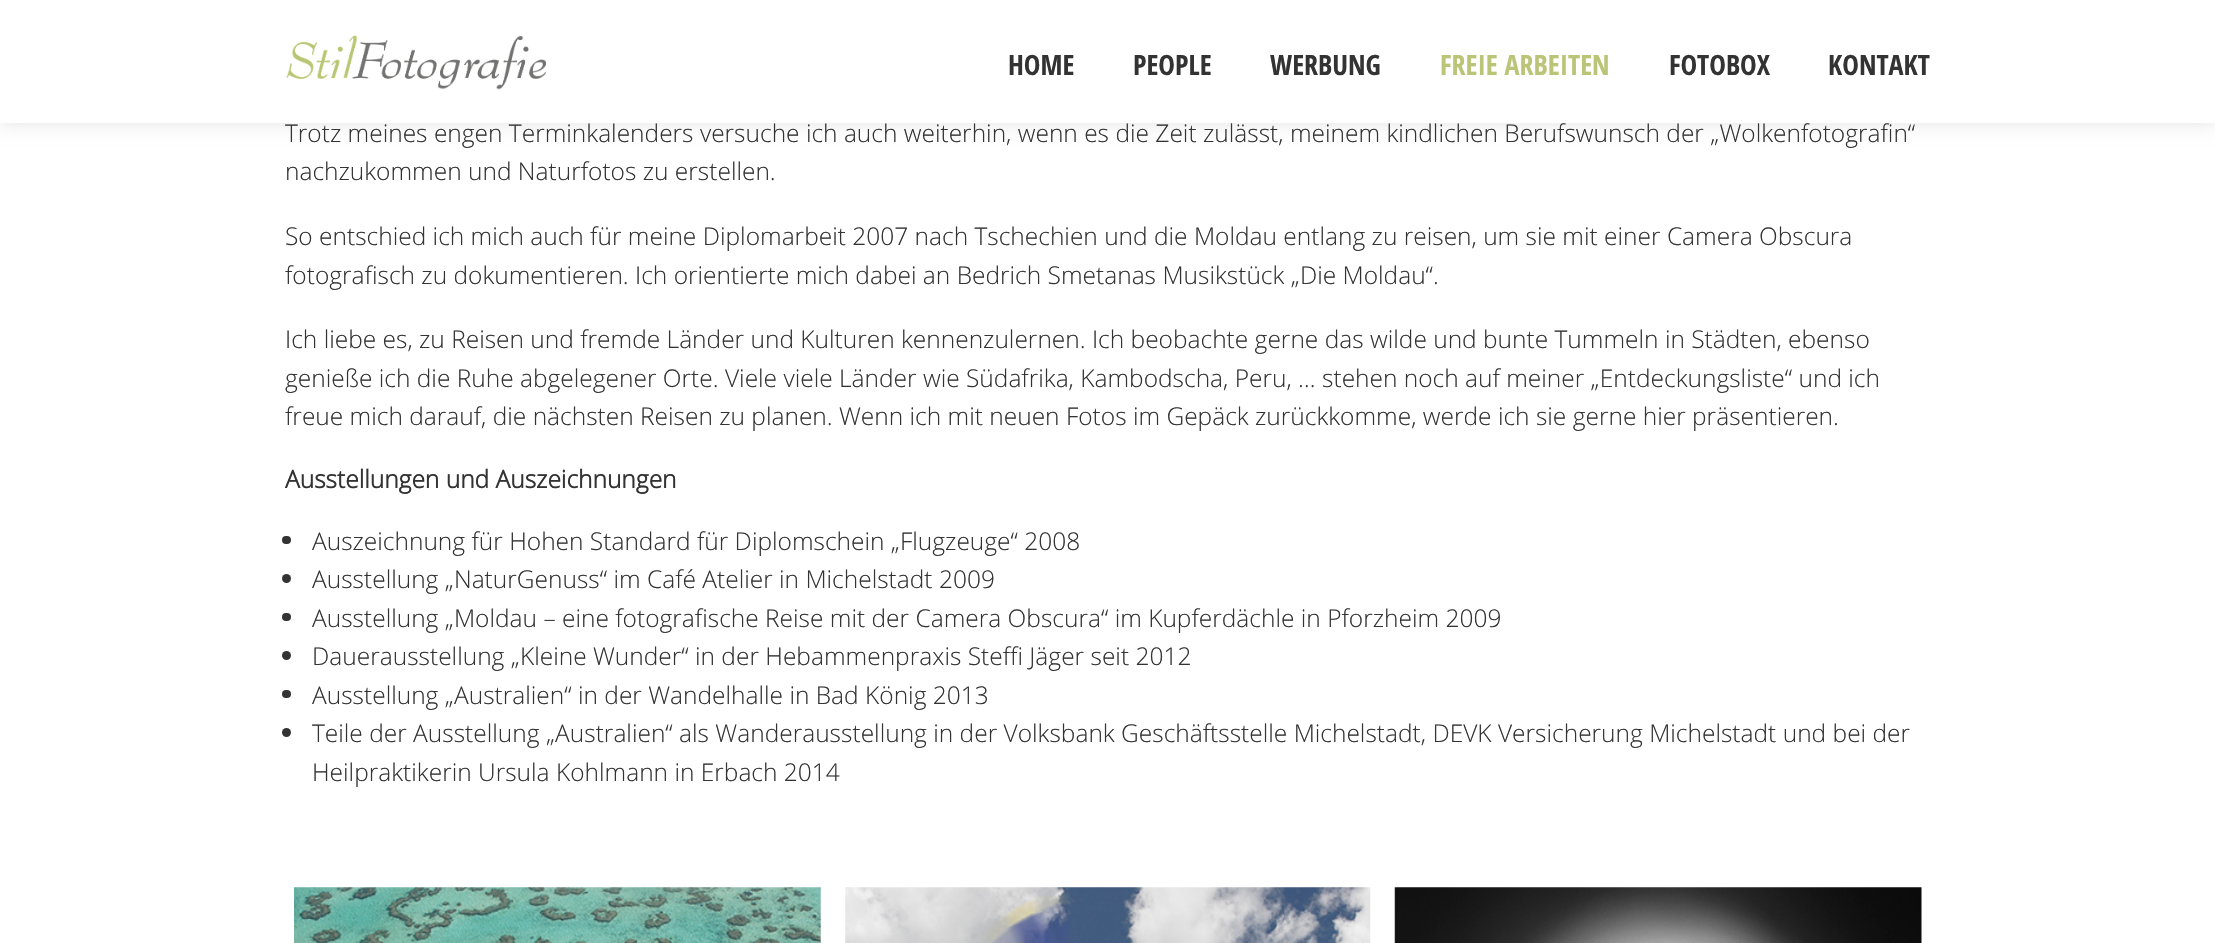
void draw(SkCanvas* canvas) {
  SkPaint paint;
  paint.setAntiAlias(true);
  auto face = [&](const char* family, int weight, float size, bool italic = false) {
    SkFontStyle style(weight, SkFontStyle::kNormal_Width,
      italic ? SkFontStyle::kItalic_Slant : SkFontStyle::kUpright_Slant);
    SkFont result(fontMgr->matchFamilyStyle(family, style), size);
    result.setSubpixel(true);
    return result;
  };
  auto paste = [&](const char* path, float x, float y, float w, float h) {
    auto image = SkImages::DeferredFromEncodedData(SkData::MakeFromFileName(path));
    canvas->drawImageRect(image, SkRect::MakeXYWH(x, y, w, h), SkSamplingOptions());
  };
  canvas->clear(0xffffffff);
  paint.setColor(0xffe3e3e3);
  paint.setMaskFilter(SkMaskFilter::MakeBlur(kNormal_SkBlurStyle, 9));
  canvas->drawRect(SkRect::MakeXYWH(0, 0, 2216, 123), paint);
  paint.setMaskFilter(nullptr);
  paint.setColor(0xffffffff);
  canvas->drawRect(SkRect::MakeXYWH(0, 0, 2215, 123), paint);
  paste("img/1.png", 286, 35, 260, 55);
  paint.setColor(0xff333333);
  canvas->drawRoundRect(SkRect::MakeXYWH(282, 536, 9, 8), 4, 4, paint);
  canvas->drawCircle(286.5f, 578.5f, 4.5f, paint);
  canvas->drawRoundRect(SkRect::MakeXYWH(282, 613, 9, 8), 4, 4, paint);
  canvas->drawCircle(286.5f, 655.5f, 4.5f, paint);
  canvas->drawRoundRect(SkRect::MakeXYWH(282, 690, 9, 8), 4, 4, paint);
  canvas->drawCircle(286.5f, 732.5f, 4.5f, paint);
  paste("img/2.png", 294, 887, 527, 56);
  paste("img/3.png", 845, 887, 526, 56);
  paste("img/4.png", 1394, 887, 528, 56);
  auto f0 = face("Open Sans Condensed", 700, 28);
  {
    const struct { const char* s; float x, y; } items[] = {
      {"HOME", 1008, 75},
      {"PEOPLE", 1133, 75},
      {"WERBUNG", 1270, 75},
    };
    for (auto [s, x, y] : items) {
      canvas->drawString(s, x, y, f0, paint);
    }
  }
  paint.setColor(0xffbbc577);
  canvas->drawString("FREIE ARBEITEN", 1440, 75, f0, paint);
  paint.setColor(0xff333333);
  canvas->drawString("FOTOBOX", 1669, 75, f0, paint);
  canvas->drawString("KONTAKT", 1828, 75, f0, paint);
  auto f1 = face("Open Sans", 300, 24.5f);
  {
    const struct { const char* s; float x, y; } items[] = {
      {"Trotz meines engen Terminkalenders versuche ich auch weiterhin, wenn es die Zeit zulässt, meinem kindlichen Berufswunsch der „Wolkenfotografin“", 285, 142},
      {"nachzukommen und Naturfotos zu erstellen.", 285, 180},
      {"So entschied ich mich auch für meine Diplomarbeit 2007 nach Tschechien und die Moldau entlang zu reisen, um sie mit einer Camera Obscura", 285, 245},
      {"fotografisch zu dokumentieren. Ich orientierte mich dabei an Bedrich Smetanas Musikstück „Die Moldau“.", 285, 284},
      {"Ich liebe es, zu Reisen und fremde Länder und Kulturen kennenzulernen. Ich beobachte gerne das wilde und bunte Tummeln in Städten, ebenso", 285, 348},
      {"genieße ich die Ruhe abgelegener Orte. Viele viele Länder wie Südafrika, Kambodscha, Peru, … stehen noch auf meiner „Entdeckungsliste“ und ich", 285, 387},
      {"freue mich darauf, die nächsten Reisen zu planen. Wenn ich mit neuen Fotos im Gepäck zurückkomme, werde ich sie gerne hier präsentieren.", 285, 425},
    };
    for (auto [s, x, y] : items) {
      canvas->drawString(s, x, y, f1, paint);
    }
  }
  auto f2 = face("Open Sans", 700, 24.5f);
  canvas->drawString("Ausstellungen und Auszeichnungen", 285, 488, f2, paint);
  {
    const struct { const char* s; float x, y; } items[] = {
      {"Auszeichnung für Hohen Standard für Diplomschein „Flugzeuge“ 2008", 312, 550},
      {"Ausstellung „NaturGenuss“ im Café Atelier in Michelstadt 2009", 312, 588},
      {"Ausstellung „Moldau – eine fotografische Reise mit der Camera Obscura“ im Kupferdächle in Pforzheim 2009", 312, 627},
      {"Dauerausstellung „Kleine Wunder“ in der Hebammenpraxis Steffi Jäger seit 2012", 312, 665},
      {"Ausstellung „Australien“ in der Wandelhalle in Bad König 2013", 312, 704},
      {"Teile der Ausstellung „Australien“ als Wanderausstellung in der Volksbank Geschäftsstelle Michelstadt, DEVK Versicherung Michelstadt und bei der", 312, 742},
      {"Heilpraktikerin Ursula Kohlmann in Erbach 2014", 312, 781},
    };
    for (auto [s, x, y] : items) {
      canvas->drawString(s, x, y, f1, paint);
    }
  }
}
